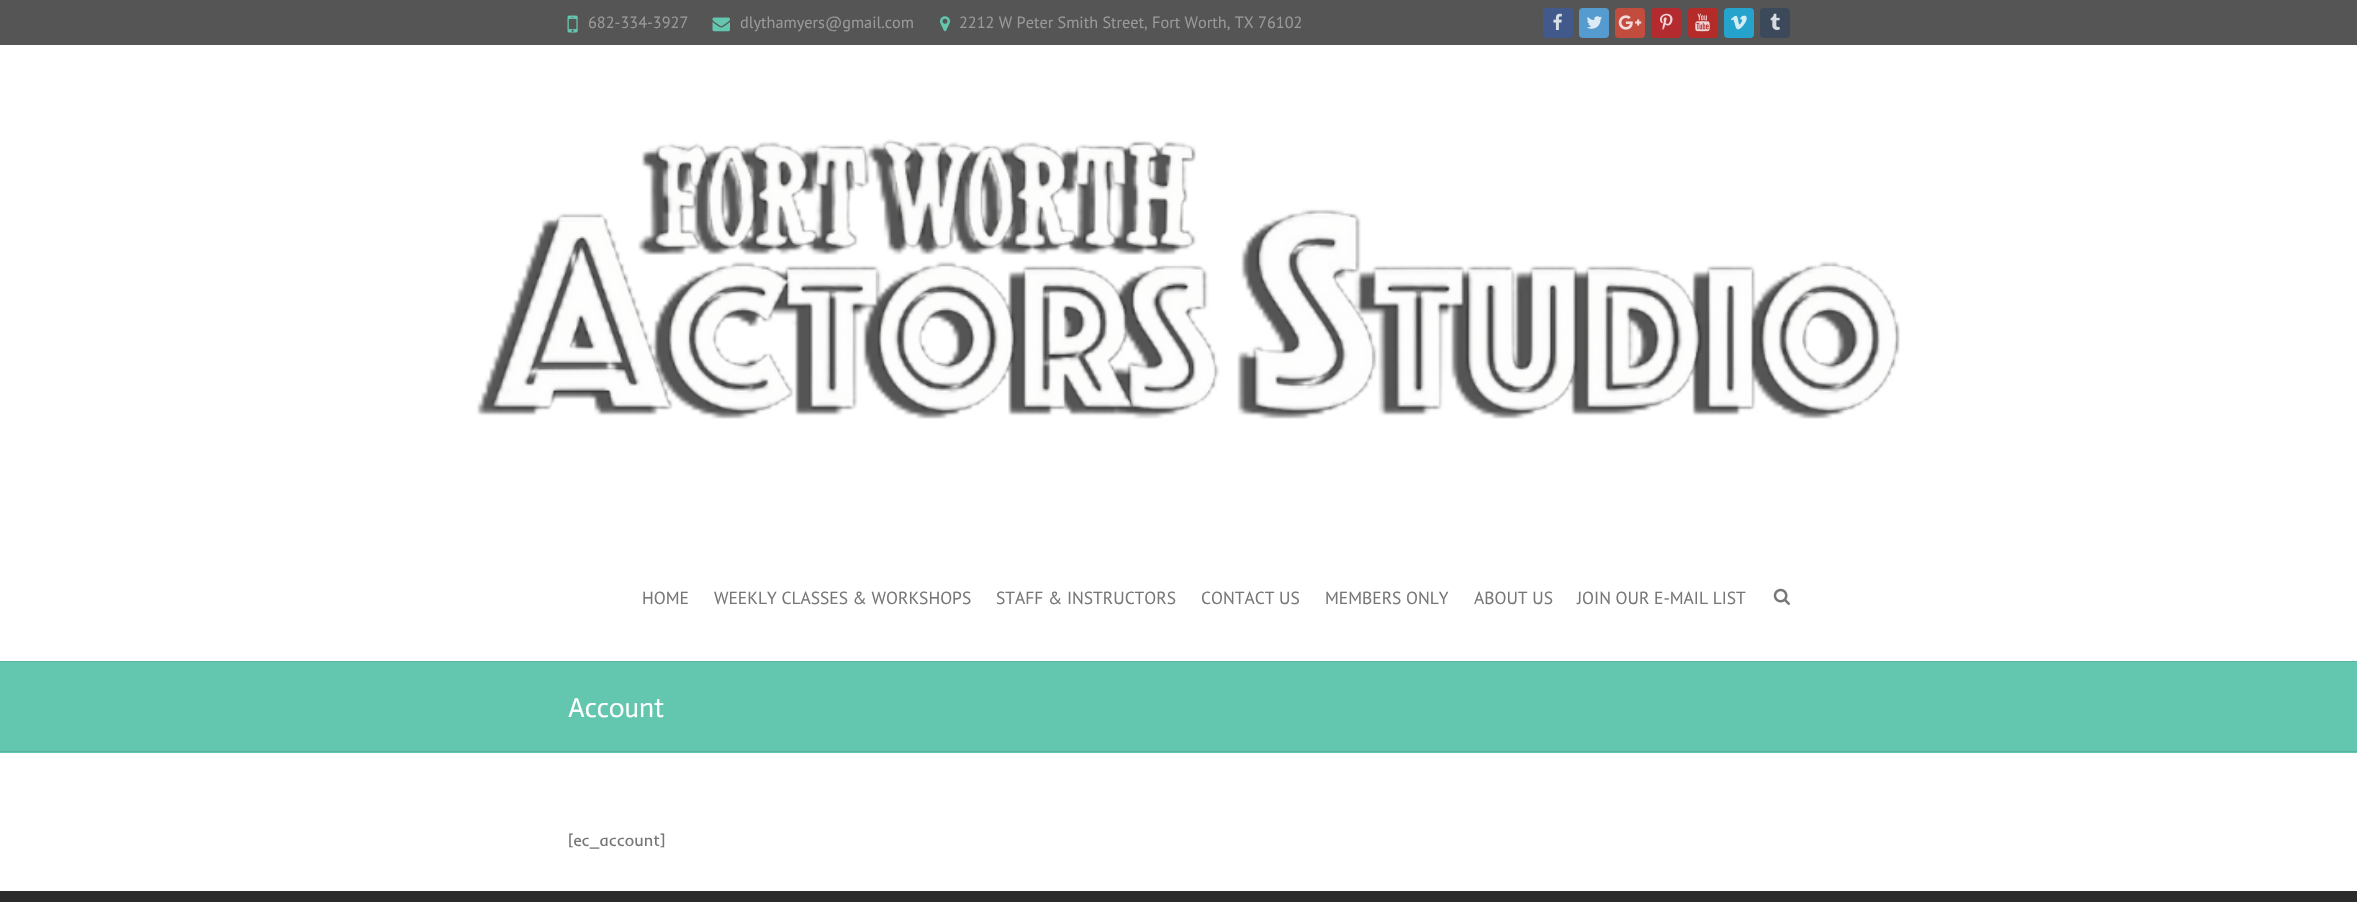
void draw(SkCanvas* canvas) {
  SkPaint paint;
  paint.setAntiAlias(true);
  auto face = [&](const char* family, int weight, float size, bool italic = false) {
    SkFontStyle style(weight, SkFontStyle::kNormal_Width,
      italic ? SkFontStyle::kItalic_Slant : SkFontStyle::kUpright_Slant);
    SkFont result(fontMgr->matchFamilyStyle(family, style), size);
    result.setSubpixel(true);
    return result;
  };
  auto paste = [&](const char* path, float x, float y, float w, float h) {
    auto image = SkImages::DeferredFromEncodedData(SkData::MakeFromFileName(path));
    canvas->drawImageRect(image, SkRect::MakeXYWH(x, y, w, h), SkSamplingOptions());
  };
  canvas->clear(0xffffffff);
  paint.setColor(0xff555555);
  canvas->drawRect(SkRect::MakeXYWH(0, 0, 2357, 45), paint);
  paste("img/1.png", 567, 15, 11, 18);
  paste("img/2.png", 712, 17, 18, 15);
  paste("img/3.png", 940, 16, 10, 16);
  paint.setColor(0xff41598b);
  canvas->drawRoundRect(SkRect::MakeXYWH(1543, 8, 30, 30), 4, 4, paint);
  paste("img/4.png", 1553, 13, 9, 17);
  paint.setColor(0xff559bcf);
  canvas->drawRoundRect(SkRect::MakeXYWH(1579, 8, 30, 30), 4, 4, paint);
  paste("img/5.png", 1587, 16, 15, 13);
  paint.setColor(0xffc24d3f);
  canvas->drawRoundRect(SkRect::MakeXYWH(1615, 8, 30, 30), 4, 4, paint);
  paste("img/6.png", 1618, 15, 24, 15);
  paint.setColor(0xffb42b2f);
  canvas->drawRoundRect(SkRect::MakeXYWH(1651, 8, 30, 30), 4, 4, paint);
  paste("img/7.png", 1660, 13, 13, 17);
  paint.setColor(0xffb52b2a);
  canvas->drawRoundRect(SkRect::MakeXYWH(1688, 8, 30, 30), 4, 4, paint);
  paste("img/8.png", 1695, 13, 15, 19);
  paint.setColor(0xff26a3cc);
  canvas->drawRoundRect(SkRect::MakeXYWH(1724, 8, 30, 30), 4, 4, paint);
  paste("img/9.png", 1730, 15, 17, 15);
  paint.setColor(0xff3b495b);
  canvas->drawRoundRect(SkRect::MakeXYWH(1760, 8, 30, 30), 4, 4, paint);
  paste("img/10.png", 1770, 13, 10, 17);
  paste("img/11.png", 476, 139, 1424, 280);
  paste("img/12.png", 1773, 588, 17, 17);
  {
    const struct { float x, y, w, h; SkColor color; } items[] = {
      {0, 662, 2357, 91, 0xff63c6ae},
      {0, 661, 2357, 1, 0xff59b29d},
      {0, 751, 2357, 1, 0xff59b29d},
      {0, 891, 2357, 11, 0xff2c2c2c},
    };
    for (auto [x, y, w, h, color] : items) {
      paint.setColor(color);
      canvas->drawRect(SkRect::MakeXYWH(x, y, w, h), paint);
    }
  }
  auto f0 = face("PT Sans", 400, 16.25f);
  paint.setColor(0xff999999);
  {
    const struct { const char* s; float x, y; } items[] = {
      {"682-334-3927", 588, 28},
      {"dlythamyers@gmail.com", 740, 28},
      {"2212 W Peter Smith Street, Fort Worth, TX 76102", 959, 28},
    };
    for (auto [s, x, y] : items) {
      canvas->drawString(s, x, y, f0, paint);
    }
  }
  auto f1 = face("PT Sans", 400, 17.5f);
  paint.setColor(0xff777777);
  {
    const struct { const char* s; float x, y; } items[] = {
      {"HOME", 642, 604},
      {"WEEKLY CLASSES & WORKSHOPS", 714, 604},
      {"STAFF & INSTRUCTORS", 996, 604},
      {"CONTACT US", 1201, 604},
      {"MEMBERS ONLY", 1325, 604},
      {"ABOUT US", 1474, 604},
      {"JOIN OUR E-MAIL LIST", 1577, 604},
    };
    for (auto [s, x, y] : items) {
      canvas->drawString(s, x, y, f1, paint);
    }
  }
  auto f2 = face("Actor", 400, 27.5f);
  paint.setColor(0xffffffff);
  canvas->drawString("Account", 568, 717, f2, paint);
  auto f3 = face("Inder", 400, 16.25f);
  paint.setColor(0xff777777);
  canvas->drawString("[ec_account]", 568, 846, f3, paint);
}
